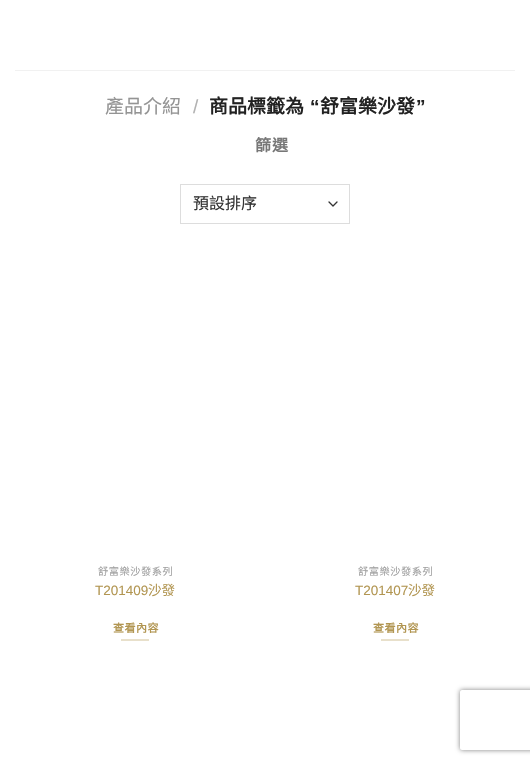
void draw(SkCanvas* canvas) {
  SkPaint paint;
  paint.setAntiAlias(true);
  auto face = [&](const char* family, int weight, float size, bool italic = false) {
    SkFontStyle style(weight, SkFontStyle::kNormal_Width,
      italic ? SkFontStyle::kItalic_Slant : SkFontStyle::kUpright_Slant);
    SkFont result(fontMgr->matchFamilyStyle(family, style), size);
    result.setSubpixel(true);
    return result;
  };
  auto writeSpaced = [&](const char* s, float x, float y, const SkFont& font, const SkPaint& ink, float letter, float word) {
    std::vector<SkGlyphID> glyphs(font.countText(s, strlen(s), SkTextEncoding::kUTF8));
    std::vector<float> xs(glyphs.size());
    font.textToGlyphs(s, strlen(s), SkTextEncoding::kUTF8, glyphs);
    font.getXPos(glyphs, xs, x);
    float extra = 0;
    for (size_t i = 0; i < glyphs.size(); i++) {
      xs[i] += extra;
      extra += letter + word * (glyphs[i] == font.unicharToGlyph(' '));
    }
    canvas->drawTextBlob(SkTextBlob::MakeFromPosHGlyphs(glyphs, xs, y, font), 0, 0, ink);
  };
  auto shape = [&](const char* data, bool evenOdd = false) {
    SkPath result = *SkParsePath::FromSVGString(data);
    if (evenOdd) result.setFillType(SkPathFillType::kEvenOdd);
    return result;
  };
  canvas->clear(0xffffffff);
  paint.setColor(0xfff1f1f1);
  canvas->drawRect(SkRect::MakeXYWH(15, 70, 500, 1), paint);
  paint.setStroke(true);
  paint.setStrokeWidth(1.3f);
  paint.setStrokeCap(SkPaint::kRound_Cap);
  paint.setStrokeJoin(SkPaint::kRound_Join);
  paint.setColor(0xff333333);
  canvas->drawPath(shape("M329 202L333 206L337 202"), paint);
  paint.setStrokeWidth(1);
  paint.setStrokeCap(SkPaint::kButt_Cap);
  paint.setStrokeJoin(SkPaint::kMiter_Join);
  paint.setColor(0xffdddddd);
  canvas->drawRect(SkRect::MakeXYWH(180.5f, 184.5f, 169, 39), paint);
  paint.setStroke(false);
  paint.setColor(0xffe8e0cb);
  canvas->drawRect(SkRect::MakeXYWH(121, 639, 28, 2), paint);
  canvas->drawRect(SkRect::MakeXYWH(381, 639, 28, 2), paint);
  canvas->save();
  canvas->clipPath(shape("M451 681H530V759H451ZM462 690H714C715 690 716 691 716 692V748C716 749 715 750 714 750H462C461 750 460 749 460 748V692C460 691 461 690 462 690Z", true), true);
  paint.setColor(0xff808080);
  paint.setMaskFilter(SkMaskFilter::MakeBlur(kNormal_SkBlurStyle, 2.5f));
  canvas->drawRoundRect(SkRect::MakeXYWH(460, 690, 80, 60), 2, 2, paint);
  paint.setMaskFilter(nullptr);
  canvas->restore();
  auto f0 = face("Noto Sans CJK TC", 400, 19);
  paint.setColor(0xff949494);
  canvas->drawString("產品介紹", 105, 113, f0, paint);
  auto f1 = face("Liberation Sans", 400, 19);
  paint.setColor(0xffb2b2b2);
  canvas->drawString("/", 193, 113, f1, paint);
  auto f2 = face("Noto Sans CJK TC", 700, 19);
  paint.setColor(0xff222222);
  canvas->drawString("商品標籤為", 209, 113, f2, paint);
  auto f3 = face("Liberation Sans", 700, 19);
  canvas->drawString("“", 310, 113, f3, paint);
  canvas->drawString("舒富樂沙發", 320, 113, f2, paint);
  canvas->drawString("”", 416, 113, f3, paint);
  auto f4 = face("Noto Sans CJK TC", 700, 16);
  paint.setColor(0xff777777);
  writeSpaced("篩選", 255, 151, f4, paint, 1, 0);
  auto f5 = face("Noto Sans CJK TC", 400, 16);
  paint.setColor(0xff333333);
  canvas->drawString("預設排序", 193, 209, f5, paint);
  auto f6 = face("Noto Sans CJK TC", 400, 10.25f);
  paint.setColor(0xffa0a0a0);
  writeSpaced("舒富樂沙發系列", 98, 575, f6, paint, 0.5f, 0);
  auto f7 = face("Liberation Sans", 400, 13.5f);
  paint.setColor(0xffb29652);
  canvas->drawString("T201409", 95, 595, f7, paint);
  auto f8 = face("Noto Sans CJK TC", 400, 13.5f);
  canvas->drawString("沙發", 148, 595, f8, paint);
  auto f9 = face("Noto Sans CJK TC", 700, 11);
  writeSpaced("查看內容", 113, 632, f9, paint, 0.5f, 0);
  paint.setColor(0xffa0a0a0);
  writeSpaced("舒富樂沙發系列", 358, 575, f6, paint, 0.5f, 0);
  paint.setColor(0xffb29652);
  canvas->drawString("T201407", 355, 595, f7, paint);
  canvas->drawString("沙發", 408, 595, f8, paint);
  writeSpaced("查看內容", 373, 632, f9, paint, 0.5f, 0);
}
